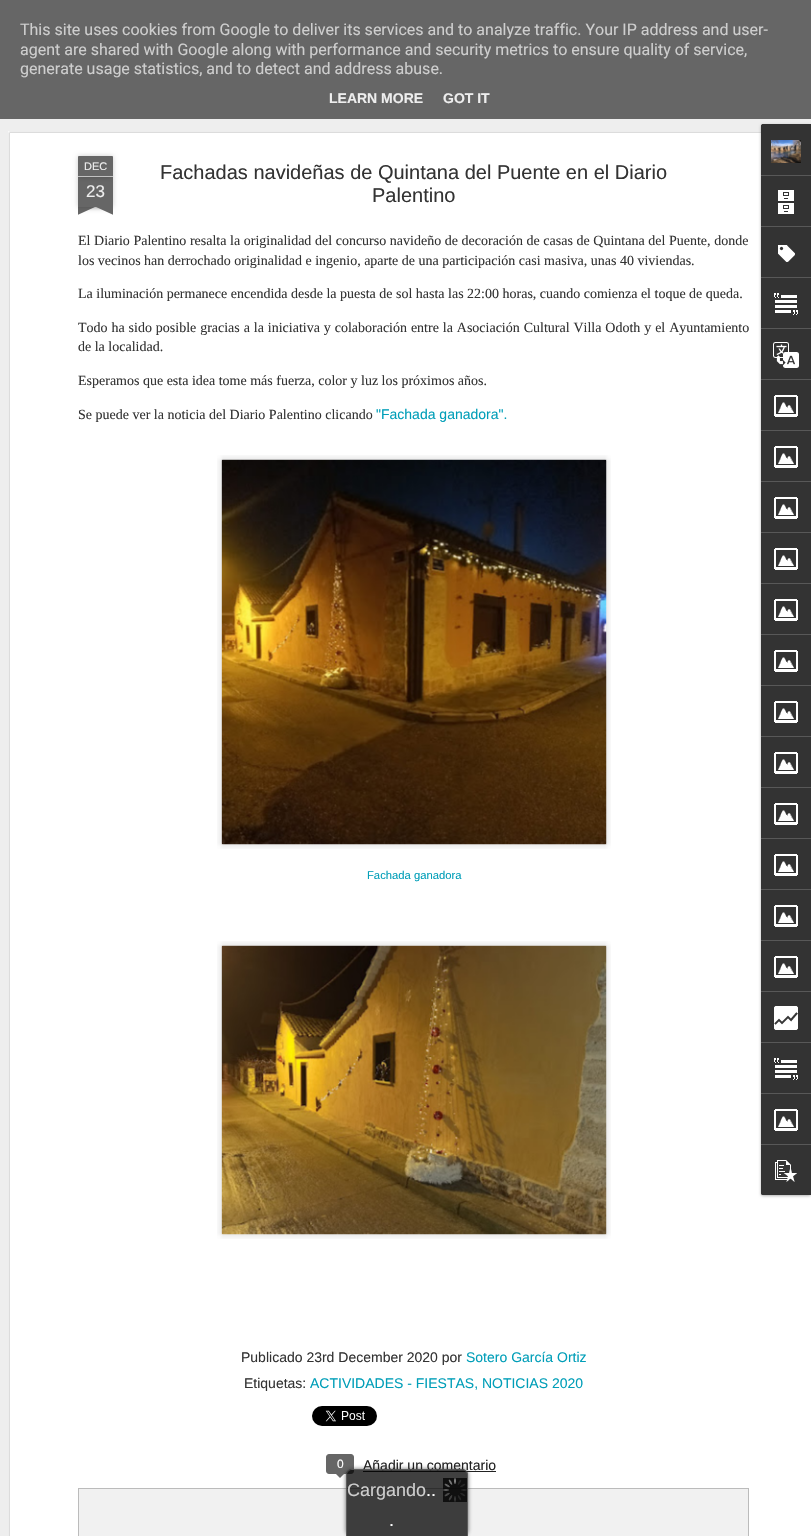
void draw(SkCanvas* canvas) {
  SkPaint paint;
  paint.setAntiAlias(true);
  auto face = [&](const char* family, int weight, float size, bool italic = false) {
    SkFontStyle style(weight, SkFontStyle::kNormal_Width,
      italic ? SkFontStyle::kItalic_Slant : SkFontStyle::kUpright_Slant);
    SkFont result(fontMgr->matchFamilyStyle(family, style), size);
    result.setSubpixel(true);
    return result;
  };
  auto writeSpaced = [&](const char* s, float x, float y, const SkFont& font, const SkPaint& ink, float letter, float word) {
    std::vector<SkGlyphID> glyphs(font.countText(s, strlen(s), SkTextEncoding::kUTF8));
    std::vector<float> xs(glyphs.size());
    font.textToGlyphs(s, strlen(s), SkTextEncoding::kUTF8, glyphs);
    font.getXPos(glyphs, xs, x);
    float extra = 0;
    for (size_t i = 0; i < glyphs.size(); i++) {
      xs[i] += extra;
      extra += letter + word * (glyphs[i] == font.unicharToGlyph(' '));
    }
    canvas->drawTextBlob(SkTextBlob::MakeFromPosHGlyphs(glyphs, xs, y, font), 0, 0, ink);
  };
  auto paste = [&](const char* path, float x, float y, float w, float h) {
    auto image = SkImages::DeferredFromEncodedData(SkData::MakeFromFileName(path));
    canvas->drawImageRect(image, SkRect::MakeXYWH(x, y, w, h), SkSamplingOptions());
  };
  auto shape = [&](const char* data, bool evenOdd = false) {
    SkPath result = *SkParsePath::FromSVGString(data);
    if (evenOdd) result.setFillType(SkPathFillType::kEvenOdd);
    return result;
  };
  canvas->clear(0xffeeeeee);
  paint.setColor(0xff666666);
  canvas->drawRect(SkRect::MakeXYWH(0, 0, 811, 119), paint);
  paint.setColor(0xffffffff);
  canvas->drawRect(SkRect::MakeXYWH(8, 131, 803, 1405), paint);
  paste("img/1.png", 8, 131, 753, 1405);
  paint.setColor(0x33000000);
  paint.setMaskFilter(SkMaskFilter::MakeBlur(kNormal_SkBlurStyle, 2.5f));
  canvas->drawRect(SkRect::MakeXYWH(78, 177, 35, 30), paint);
  paint.setMaskFilter(nullptr);
  paint.setColor(0xff666666);
  canvas->drawRect(SkRect::MakeXYWH(78, 177, 35, 30), paint);
  paint.setColor(0x33000000);
  paint.setMaskFilter(SkMaskFilter::MakeBlur(kNormal_SkBlurStyle, 2.5f));
  canvas->drawRoundRect(SkRect::MakeXYWH(78, 156, 35, 21), 1, 1, paint);
  paint.setMaskFilter(nullptr);
  paint.setColor(0xff666666);
  canvas->drawPath(shape("M79 156H112C112.5 156 113 156.5 113 157V177H78V157C78 156.5 78.5 156 79 156Z"), paint);
  paint.setColor(0xffc2c2c2);
  canvas->drawRect(SkRect::MakeXYWH(78, 176, 35, 1), paint);
  canvas->save();
  canvas->clipRect(SkRect::MakeXYWH(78, 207, 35, 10));
  paint.setColor(0x33000000);
  paint.setMaskFilter(SkMaskFilter::MakeBlur(kNormal_SkBlurStyle, 2.5f));
  canvas->drawRect(SkRect::MakeXYWH(69, 197, 50, 10), paint);
  paint.setMaskFilter(nullptr);
  canvas->restore();
  canvas->save();
  canvas->clipRect(SkRect::MakeXYWH(78, 207, 35, 10));
  paint.setColor(0xff666666);
  canvas->drawPath(shape("M69 208L115 187L119 196L73 217Z"), paint);
  canvas->restore();
  canvas->save();
  canvas->clipRect(SkRect::MakeXYWH(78, 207, 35, 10));
  paint.setColor(0x33000000);
  paint.setMaskFilter(SkMaskFilter::MakeBlur(kNormal_SkBlurStyle, 2.5f));
  canvas->drawRect(SkRect::MakeXYWH(72, 197, 50, 10), paint);
  paint.setMaskFilter(nullptr);
  canvas->restore();
  canvas->save();
  canvas->clipRect(SkRect::MakeXYWH(78, 207, 35, 10));
  paint.setColor(0xff666666);
  canvas->drawPath(shape("M76 187L122 208L118 217L72 196Z"), paint);
  canvas->restore();
  paste("img/2.png", 217, 455, 394, 394);
  paste("img/3.png", 221, 459, 386, 386);
  paste("img/4.png", 217, 941, 394, 298);
  paste("img/5.png", 221, 945, 386, 290);
  paste("img/6.png", 312, 1406, 65, 20);
  canvas->drawRoundRect(SkRect::MakeXYWH(326.5f, 1454.5f, 27, 19), 2.5f, 2.5f, paint);
  paint.setStroke(true);
  paint.setStrokeWidth(1);
  canvas->drawRoundRect(SkRect::MakeXYWH(326.5f, 1454.5f, 27, 19), 2.5f, 2.5f, paint);
  paint.setStroke(false);
  canvas->drawPath(shape("M335 1473H345L340 1478Z"), paint);
  paint.setColor(0xff222222);
  canvas->drawRect(SkRect::MakeXYWH(363, 1471, 133, 1), paint);
  paint.setColor(0xfff1f1f1);
  canvas->drawRect(SkRect::MakeXYWH(78.5f, 1488.5f, 670, 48), paint);
  paint.setStroke(true);
  paint.setColor(0xffbbbbbb);
  canvas->drawRect(SkRect::MakeXYWH(78.5f, 1488.5f, 670, 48), paint);
  paint.setStroke(false);
  paint.setColor(0x4d000000);
  paint.setMaskFilter(SkMaskFilter::MakeBlur(kNormal_SkBlurStyle, 1.5f));
  canvas->drawRoundRect(SkRect::MakeXYWH(761, 125, 50, 1071), 2, 2, paint);
  paint.setMaskFilter(nullptr);
  paint.setColor(0xff333333);
  canvas->drawPath(shape("M763 124H811V1195H763C762 1195 761 1194 761 1193V126C761 125 762 124 763 124Z"), paint);
  canvas->drawPath(shape("M763 124H811V175H761V126C761 125 762 124 763 124Z"), paint);
  paste("img/7.png", 771, 140, 30, 23);
  paint.setColor(0xff585858);
  canvas->drawRect(SkRect::MakeXYWH(761, 175, 50, 1), paint);
  paste("img/8.png", 778, 190, 16, 24);
  canvas->drawRect(SkRect::MakeXYWH(761, 226, 50, 1), paint);
  paste("img/9.png", 778, 245, 17, 17);
  canvas->drawRect(SkRect::MakeXYWH(761, 277, 50, 1), paint);
  paste("img/10.png", 774, 293, 24, 22);
  canvas->drawRect(SkRect::MakeXYWH(761, 328, 50, 1), paint);
  paste("img/11.png", 773, 342, 26, 26);
  canvas->drawRect(SkRect::MakeXYWH(761, 379, 50, 1), paint);
  paste("img/12.png", 774, 395, 24, 22);
  canvas->drawRect(SkRect::MakeXYWH(761, 430, 50, 1), paint);
  paste("img/12.png", 774, 446, 24, 22);
  canvas->drawRect(SkRect::MakeXYWH(761, 481, 50, 1), paint);
  paste("img/12.png", 774, 497, 24, 22);
  canvas->drawRect(SkRect::MakeXYWH(761, 532, 50, 1), paint);
  paste("img/12.png", 774, 548, 24, 22);
  canvas->drawRect(SkRect::MakeXYWH(761, 583, 50, 1), paint);
  paste("img/12.png", 774, 599, 24, 22);
  canvas->drawRect(SkRect::MakeXYWH(761, 634, 50, 1), paint);
  paste("img/12.png", 774, 650, 24, 22);
  canvas->drawRect(SkRect::MakeXYWH(761, 685, 50, 1), paint);
  paste("img/12.png", 774, 701, 24, 22);
  canvas->drawRect(SkRect::MakeXYWH(761, 736, 50, 1), paint);
  paste("img/12.png", 774, 752, 24, 22);
  canvas->drawRect(SkRect::MakeXYWH(761, 787, 50, 1), paint);
  paste("img/12.png", 774, 803, 24, 22);
  canvas->drawRect(SkRect::MakeXYWH(761, 838, 50, 1), paint);
  paste("img/12.png", 774, 854, 24, 22);
  canvas->drawRect(SkRect::MakeXYWH(761, 889, 50, 1), paint);
  paste("img/12.png", 774, 905, 24, 22);
  canvas->drawRect(SkRect::MakeXYWH(761, 940, 50, 1), paint);
  paste("img/12.png", 774, 956, 24, 22);
  canvas->drawRect(SkRect::MakeXYWH(761, 991, 50, 1), paint);
  paste("img/13.png", 774, 1006, 24, 24);
  canvas->drawRect(SkRect::MakeXYWH(761, 1042, 50, 1), paint);
  paste("img/10.png", 774, 1058, 24, 22);
  canvas->drawRect(SkRect::MakeXYWH(761, 1093, 50, 1), paint);
  paste("img/12.png", 774, 1109, 24, 22);
  paint.setColor(0xff333333);
  canvas->drawPath(shape("M761 1144H811V1195H763C762 1195 761 1194 761 1193Z"), paint);
  paint.setColor(0xff585858);
  canvas->drawRect(SkRect::MakeXYWH(761, 1144, 50, 1), paint);
  paste("img/14.png", 775, 1160, 22, 22);
  canvas->save();
  canvas->clipPath(shape("M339 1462H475V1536H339ZM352 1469H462C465.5 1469 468 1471.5 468 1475V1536H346V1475C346 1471.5 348.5 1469 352 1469Z", true), true);
  paint.setColor(0xbf333333);
  paint.setMaskFilter(SkMaskFilter::MakeBlur(kNormal_SkBlurStyle, 2));
  canvas->drawRoundRect(SkRect::MakeXYWH(346, 1469, 122, 67), 6, 6, paint);
  paint.setMaskFilter(nullptr);
  canvas->restore();
  auto f0 = face("Roboto", 400, 16);
  paint.setColor(0xffcecece);
  {
    const struct { const char* s; float x, y; } items[] = {
      {"This site uses cookies from Google to deliver its services and to analyze traffic. Your IP address and user-", 20, 35},
      {"agent are shared with Google along with performance and security metrics to ensure quality of service,", 20, 55},
      {"generate usage statistics, and to detect and address abuse.", 20, 74},
    };
    for (auto [s, x, y] : items) {
      canvas->drawString(s, x, y, f0, paint);
    }
  }
  auto f1 = face("Liberation Sans", 700, 14);
  paint.setColor(0xffeeeeee);
  canvas->drawString("LEARN MORE", 329, 103, f1, paint);
  canvas->drawString("GOT IT", 443, 103, f1, paint);
  auto f2 = face("Liberation Sans", 400, 11);
  canvas->drawString("DEC", 84, 170, f2, paint);
  auto f3 = face("Liberation Sans", 400, 17);
  canvas->drawString("23", 86, 197, f3, paint);
  auto f4 = face("Liberation Sans", 400, 20);
  paint.setColor(0xff333333);
  canvas->drawString("Fachadas navideñas de Quintana del Puente en el Diario", 160, 179, f4, paint);
  canvas->drawString("Palentino", 372, 202, f4, paint);
  auto f5 = face("Liberation Serif", 400, 14);
  writeSpaced("El Diario Palentino resalta la originalidad del concurso navideño de decoración de casas de Quintana del Puente, donde", 78, 245, f5, paint, 0, 0.1f);
  canvas->drawString("los vecinos han derrochado originalidad e ingenio, aparte de una participación casi masiva, unas 40 viviendas.", 78, 265, f5, paint);
  canvas->drawString("La iluminación permanece encendida desde la puesta de sol hasta las 22:00 horas, cuando comienza el toque de queda.", 78, 298, f5, paint);
  writeSpaced("Todo ha sido posible gracias a la iniciativa y colaboración entre la Asociación Cultural Villa Odoth y el Ayuntamiento", 78, 332, f5, paint, 0, 0.4f);
  {
    const struct { const char* s; float x, y; } items[] = {
      {"de la localidad.", 78, 351},
      {"Esperamos que esta idea tome más fuerza, color y luz los próximos años.", 78, 385},
      {"Se puede ver la noticia del Diario Palentino clicando", 78, 419},
    };
    for (auto [s, x, y] : items) {
      canvas->drawString(s, x, y, f5, paint);
    }
  }
  auto f6 = face("Liberation Sans", 400, 14);
  paint.setColor(0xff009eb8);
  canvas->drawString("\"Fachada ganadora\".", 376, 419, f6, paint);
  auto f7 = face("Liberation Sans", 400, 11.25f);
  canvas->drawString("Fachada ganadora", 367, 879, f7, paint);
  paint.setColor(0xff333333);
  canvas->drawString("Publicado 23rd December 2020 por", 241, 1362, f6, paint);
  paint.setColor(0xff009eb8);
  canvas->drawString("Sotero García Ortiz", 466, 1362, f6, paint);
  paint.setColor(0xff333333);
  canvas->drawString("Etiquetas:", 244, 1388, f6, paint);
  paint.setColor(0xff009eb8);
  canvas->drawString("ACTIVIDADES - FIESTAS, NOTICIAS 2020", 310, 1388, f6, paint);
  auto f8 = face("Liberation Sans", 400, 12);
  paint.setColor(0xffffffff);
  canvas->drawString("0", 337, 1468, f8, paint);
  paint.setColor(0xff222222);
  canvas->drawString("Añadir un comentario", 363, 1470, f6, paint);
  paint.setColor(0xbf000000);
  canvas->drawPath(shape("M352 1469H462C465.5 1469 468 1471.5 468 1475V1536H346V1475C346 1471.5 348.5 1469 352 1469Z"), paint);
  paint.setColor(0xbf666666);
  canvas->drawPath(shape("M352 1469H462C465 1469 468 1472 468 1475V1536H346V1475C346 1472 349 1469 352 1469ZM352 1470H462C465 1470 467 1472 467 1475V1536H347V1475C347 1472 349 1470 352 1470Z", true), paint);
  paste("img/15.png", 443, 1478, 24, 24);
  auto f9 = face("Liberation Sans", 400, 18);
  paint.setColor(0xffcecece);
  canvas->drawString("Cargando", 347, 1496, f9, paint);
  paint.setColor(0xffffffff);
  canvas->drawString("..", 426, 1496, f9, paint);
  canvas->drawString(".", 389, 1526, f9, paint);
}
